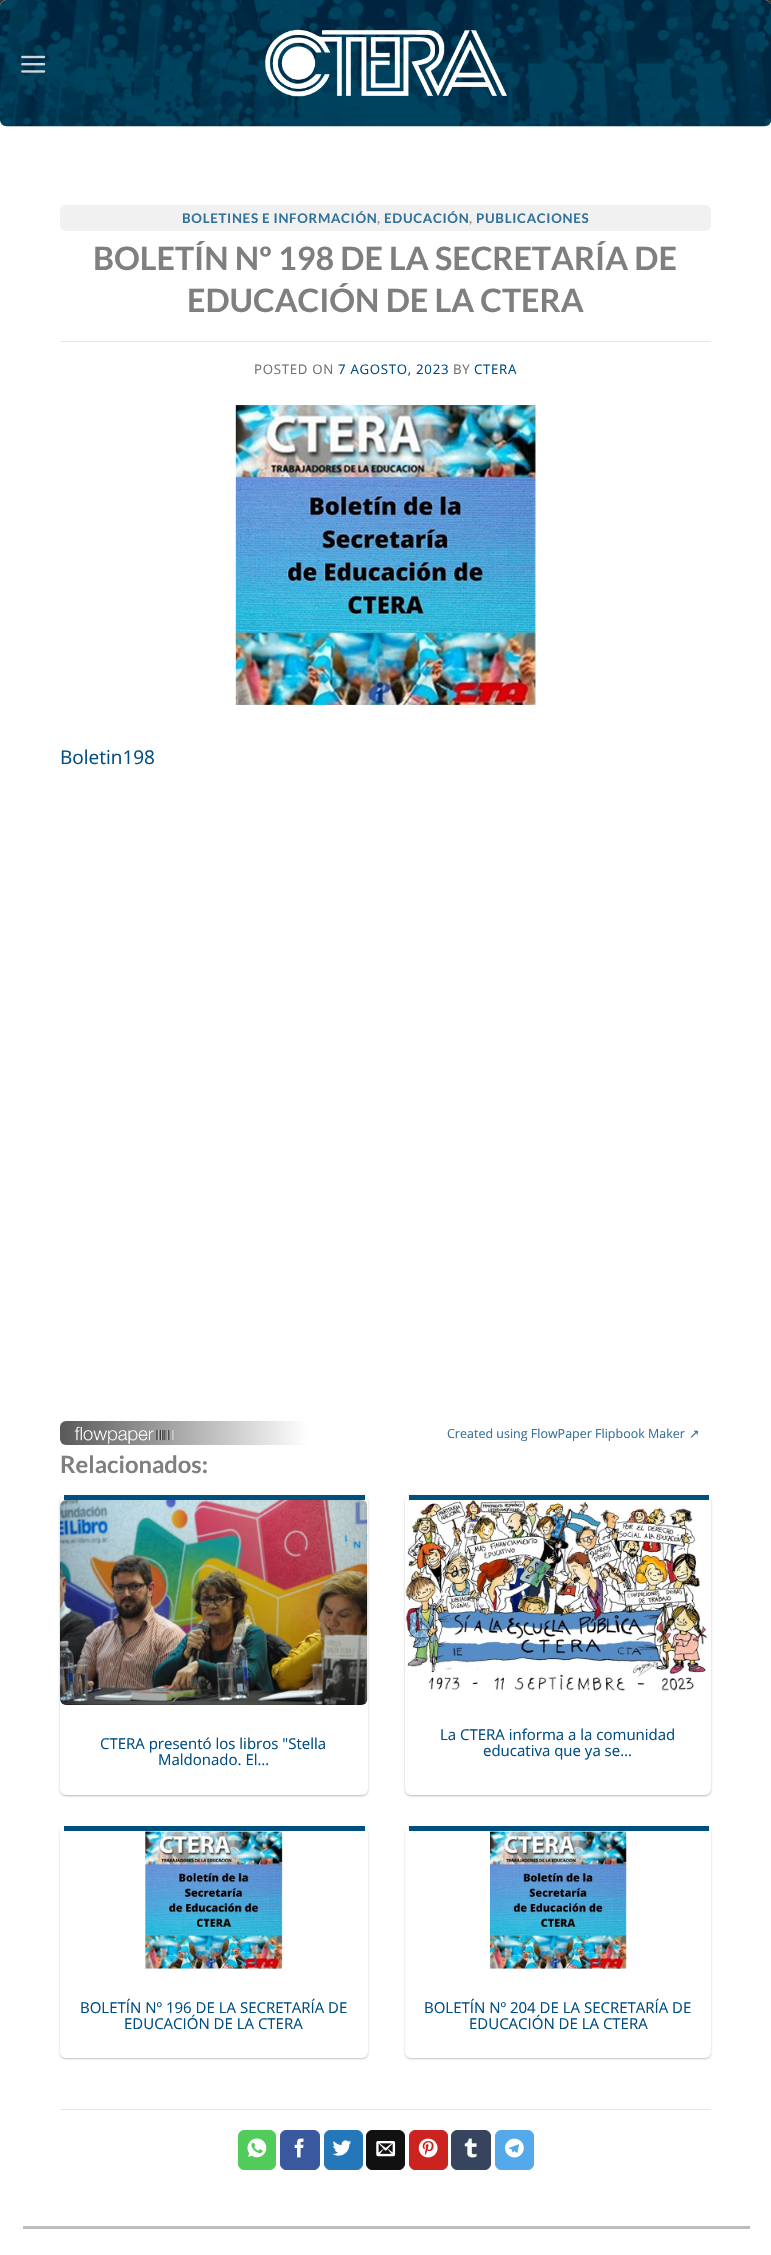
void draw(SkCanvas* canvas) {
  SkPaint paint;
  paint.setAntiAlias(true);
  auto face = [&](const char* family, int weight, float size, bool italic = false) {
    SkFontStyle style(weight, SkFontStyle::kNormal_Width,
      italic ? SkFontStyle::kItalic_Slant : SkFontStyle::kUpright_Slant);
    SkFont result(fontMgr->matchFamilyStyle(family, style), size);
    result.setSubpixel(true);
    return result;
  };
  auto writeSpaced = [&](const char* s, float x, float y, const SkFont& font, const SkPaint& ink, float letter, float word) {
    std::vector<SkGlyphID> glyphs(font.countText(s, strlen(s), SkTextEncoding::kUTF8));
    std::vector<float> xs(glyphs.size());
    font.textToGlyphs(s, strlen(s), SkTextEncoding::kUTF8, glyphs);
    font.getXPos(glyphs, xs, x);
    float extra = 0;
    for (size_t i = 0; i < glyphs.size(); i++) {
      xs[i] += extra;
      extra += letter + word * (glyphs[i] == font.unicharToGlyph(' '));
    }
    canvas->drawTextBlob(SkTextBlob::MakeFromPosHGlyphs(glyphs, xs, y, font), 0, 0, ink);
  };
  auto paste = [&](const char* path, float x, float y, float w, float h) {
    auto image = SkImages::DeferredFromEncodedData(SkData::MakeFromFileName(path));
    canvas->drawImageRect(image, SkRect::MakeXYWH(x, y, w, h), SkSamplingOptions());
  };
  canvas->clear(0xff303030);
  paint.setColor(0xffffffff);
  canvas->drawRoundRect(SkRect::MakeXYWH(0, 0, 771, 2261), 6, 6, paint);
  paste("img/1.png", 0, 0, 771, 127);
  paste("img/2.png", 21, 55, 25, 18);
  paste("img/3.png", 265, 29, 242, 68);
  paint.setColor(0xffbdbdbd);
  canvas->drawRect(SkRect::MakeXYWH(23, 2226, 727, 3), paint);
  paint.setColor(0xfff1f1f1);
  canvas->drawRoundRect(SkRect::MakeXYWH(60, 205, 651, 26), 6, 6, paint);
  paint.setColor(0xffe6e6e6);
  canvas->drawRoundRect(SkRect::MakeXYWH(60, 341, 651, 1), 0.5f, 0.5f, paint);
  paste("img/4.png", 235, 405, 301, 300);
  {
    const SkColor colors[] = {0xff595959, 0xffffffff};
    const float stops[] = {0, 0.38f};
    const SkPoint ends[] = {{60, 1433}, {711, 1433}};
    paint.setShader(SkGradientShader::MakeLinear(ends, colors, stops, 2, SkTileMode::kClamp));
    paint.setAlpha(255);
  }
  canvas->drawRoundRect(SkRect::MakeXYWH(60, 1421, 651, 24), 6, 6, paint);
  paste("img/5.png", 74, 1426, 100, 18);
  paint.setShader(nullptr);
  paint.setColor(0x3d000000);
  paint.setMaskFilter(SkMaskFilter::MakeBlur(kNormal_SkBlurStyle, 1));
  canvas->drawRoundRect(SkRect::MakeXYWH(60, 1496, 308, 300), 6, 6, paint);
  paint.setMaskFilter(nullptr);
  paint.setColor(0x1f000000);
  paint.setMaskFilter(SkMaskFilter::MakeBlur(kNormal_SkBlurStyle, 2));
  canvas->drawRoundRect(SkRect::MakeXYWH(63, 1499, 302, 295), 4, 4, paint);
  paint.setMaskFilter(nullptr);
  paint.setColor(0xffffffff);
  canvas->drawRoundRect(SkRect::MakeXYWH(60, 1495, 308, 300), 6, 6, paint);
  paint.setColor(0xff00507f);
  canvas->drawRect(SkRect::MakeXYWH(64, 1495, 301, 5), paint);
  paste("img/6.png", 60, 1500, 308, 205);
  paint.setColor(0x3d000000);
  paint.setMaskFilter(SkMaskFilter::MakeBlur(kNormal_SkBlurStyle, 1));
  canvas->drawRoundRect(SkRect::MakeXYWH(405, 1496, 306, 300), 6, 6, paint);
  paint.setMaskFilter(nullptr);
  paint.setColor(0x1f000000);
  paint.setMaskFilter(SkMaskFilter::MakeBlur(kNormal_SkBlurStyle, 2));
  canvas->drawRoundRect(SkRect::MakeXYWH(408, 1499, 301, 295), 4, 4, paint);
  paint.setMaskFilter(nullptr);
  paint.setColor(0xffffffff);
  canvas->drawRoundRect(SkRect::MakeXYWH(405, 1495, 306, 300), 6, 6, paint);
  paint.setColor(0xff00507f);
  canvas->drawRect(SkRect::MakeXYWH(409, 1495, 300, 5), paint);
  paste("img/7.png", 405, 1500, 303, 192);
  paint.setColor(0x3d000000);
  paint.setMaskFilter(SkMaskFilter::MakeBlur(kNormal_SkBlurStyle, 1));
  canvas->drawRoundRect(SkRect::MakeXYWH(60, 1828, 308, 231), 6, 6, paint);
  paint.setMaskFilter(nullptr);
  paint.setColor(0xffffffff);
  canvas->drawRoundRect(SkRect::MakeXYWH(60, 1826, 308, 232), 6, 6, paint);
  paint.setColor(0xff00507f);
  canvas->drawRect(SkRect::MakeXYWH(64, 1826, 301, 5), paint);
  paste("img/8.png", 145, 1831, 138, 138);
  paint.setColor(0x3d000000);
  paint.setMaskFilter(SkMaskFilter::MakeBlur(kNormal_SkBlurStyle, 1));
  canvas->drawRoundRect(SkRect::MakeXYWH(405, 1828, 306, 231), 6, 6, paint);
  paint.setMaskFilter(nullptr);
  paint.setColor(0xffffffff);
  canvas->drawRoundRect(SkRect::MakeXYWH(405, 1826, 306, 232), 6, 6, paint);
  paint.setColor(0xff00507f);
  canvas->drawRect(SkRect::MakeXYWH(409, 1826, 300, 5), paint);
  paste("img/9.png", 490, 1831, 137, 138);
  paint.setColor(0xffe6e6e6);
  canvas->drawRoundRect(SkRect::MakeXYWH(60, 2109, 651, 1), 0.5f, 0.5f, paint);
  paint.setColor(0xff51cb5a);
  canvas->drawRoundRect(SkRect::MakeXYWH(238.5f, 2130.5f, 37, 39), 5.5f, 5.5f, paint);
  paint.setStroke(true);
  paint.setStrokeWidth(1);
  canvas->drawRoundRect(SkRect::MakeXYWH(238.5f, 2130.5f, 37, 39), 5.5f, 5.5f, paint);
  paste("img/10.png", 247, 2138, 20, 20);
  paint.setStroke(false);
  paint.setColor(0xff3a589d);
  canvas->drawRoundRect(SkRect::MakeXYWH(280.5f, 2130.5f, 39, 39), 5.5f, 5.5f, paint);
  paint.setStroke(true);
  canvas->drawRoundRect(SkRect::MakeXYWH(280.5f, 2130.5f, 39, 39), 5.5f, 5.5f, paint);
  paste("img/11.png", 294, 2138, 10, 20);
  paint.setStroke(false);
  paint.setColor(0xff2478ba);
  canvas->drawRoundRect(SkRect::MakeXYWH(324.5f, 2130.5f, 38, 39), 5.5f, 5.5f, paint);
  paint.setStroke(true);
  canvas->drawRoundRect(SkRect::MakeXYWH(324.5f, 2130.5f, 38, 39), 5.5f, 5.5f, paint);
  paste("img/12.png", 332, 2140, 20, 16);
  paint.setStroke(false);
  paint.setColor(0xff111111);
  canvas->drawRoundRect(SkRect::MakeXYWH(366.5f, 2130.5f, 38, 39), 5.5f, 5.5f, paint);
  paint.setStroke(true);
  canvas->drawRoundRect(SkRect::MakeXYWH(366.5f, 2130.5f, 38, 39), 5.5f, 5.5f, paint);
  paste("img/13.png", 376, 2141, 20, 16);
  paint.setStroke(false);
  paint.setColor(0xffcb2320);
  canvas->drawRoundRect(SkRect::MakeXYWH(409.5f, 2130.5f, 38, 39), 5.5f, 5.5f, paint);
  paint.setStroke(true);
  canvas->drawRoundRect(SkRect::MakeXYWH(409.5f, 2130.5f, 38, 39), 5.5f, 5.5f, paint);
  paste("img/14.png", 418, 2138, 20, 20);
  paint.setStroke(false);
  paint.setColor(0xff36455d);
  canvas->drawRoundRect(SkRect::MakeXYWH(451.5f, 2130.5f, 39, 39), 5.5f, 5.5f, paint);
  paint.setStroke(true);
  canvas->drawRoundRect(SkRect::MakeXYWH(451.5f, 2130.5f, 39, 39), 5.5f, 5.5f, paint);
  paste("img/15.png", 464, 2138, 13, 20);
  paint.setStroke(false);
  paint.setColor(0xff54a9ea);
  canvas->drawRoundRect(SkRect::MakeXYWH(495.5f, 2130.5f, 38, 39), 5.5f, 5.5f, paint);
  paint.setStroke(true);
  canvas->drawRoundRect(SkRect::MakeXYWH(495.5f, 2130.5f, 38, 39), 5.5f, 5.5f, paint);
  paste("img/16.png", 505, 2138, 19, 20);
  auto f0 = face("Lato", 700, 13.25f);
  paint.setStroke(false);
  paint.setColor(0xff33719a);
  writeSpaced("BOLETINES E INFORMACIÓN", 182, 223, f0, paint, 0.7f, 0);
  paint.setColor(0xff999999);
  writeSpaced(",", 377, 223, f0, paint, 0.7f, 0);
  paint.setColor(0xff33719a);
  writeSpaced("EDUCACIÓN", 384, 223, f0, paint, 0.7f, 0);
  paint.setColor(0xff999999);
  writeSpaced(",", 469, 223, f0, paint, 0.7f, 0);
  paint.setColor(0xff33719a);
  writeSpaced("PUBLICACIONES", 476, 223, f0, paint, 0.7f, 0);
  auto f1 = face("Lato", 700, 32.25f);
  paint.setColor(0xff7f7f7f);
  canvas->drawString("BOLETÍN Nº 198 DE LA SECRETARÍA DE", 93, 270, f1, paint);
  canvas->drawString("EDUCACIÓN DE LA CTERA", 187, 312, f1, paint);
  auto f2 = face("Open Sans", 400, 13.25f);
  paint.setColor(0xff707070);
  writeSpaced("POSTED ON", 254, 374, f2, paint, 0.7f, 0);
  paint.setColor(0xff004d81);
  writeSpaced("7 AGOSTO, 2023", 338, 374, f2, paint, 0.7f, 0);
  paint.setColor(0xff707070);
  writeSpaced("BY", 453, 374, f2, paint, 0.7f, 0);
  paint.setColor(0xff004d81);
  writeSpaced("CTERA", 474, 374, f2, paint, 0.7f, 0);
  auto f3 = face("Open Sans", 400, 19);
  canvas->drawString("Boletin198", 60, 764, f3, paint);
  auto f4 = face("Open Sans", 400, 12.5f);
  paint.setColor(0xff33719a);
  canvas->drawString("Created using FlowPaper Flipbook Maker", 447, 1438, f4, paint);
  auto f5 = face("DejaVu Sans", 400, 12.5f);
  canvas->drawString("↗", 689, 1438, f5, paint);
  auto f6 = face("Lato", 700, 23.75f);
  paint.setColor(0xff7f7f7f);
  canvas->drawString("Relacionados:", 60, 1473, f6, paint);
  auto f7 = face("Open Sans", 400, 15);
  paint.setColor(0xff004d81);
  {
    const struct { const char* s; float x, y; } items[] = {
      {"CTERA presentó los libros \"Stella", 100, 1749},
      {"Maldonado. El…", 158, 1765},
      {"La CTERA informa a la comunidad", 440, 1740},
      {"educativa que ya se…", 483, 1756},
      {"BOLETÍN Nº 196 DE LA SECRETARÍA DE", 80, 2013},
      {"EDUCACIÓN DE LA CTERA", 124, 2029},
      {"BOLETÍN Nº 204 DE LA SECRETARÍA DE", 424, 2013},
      {"EDUCACIÓN DE LA CTERA", 469, 2029},
    };
    for (auto [s, x, y] : items) {
      canvas->drawString(s, x, y, f7, paint);
    }
  }
}
